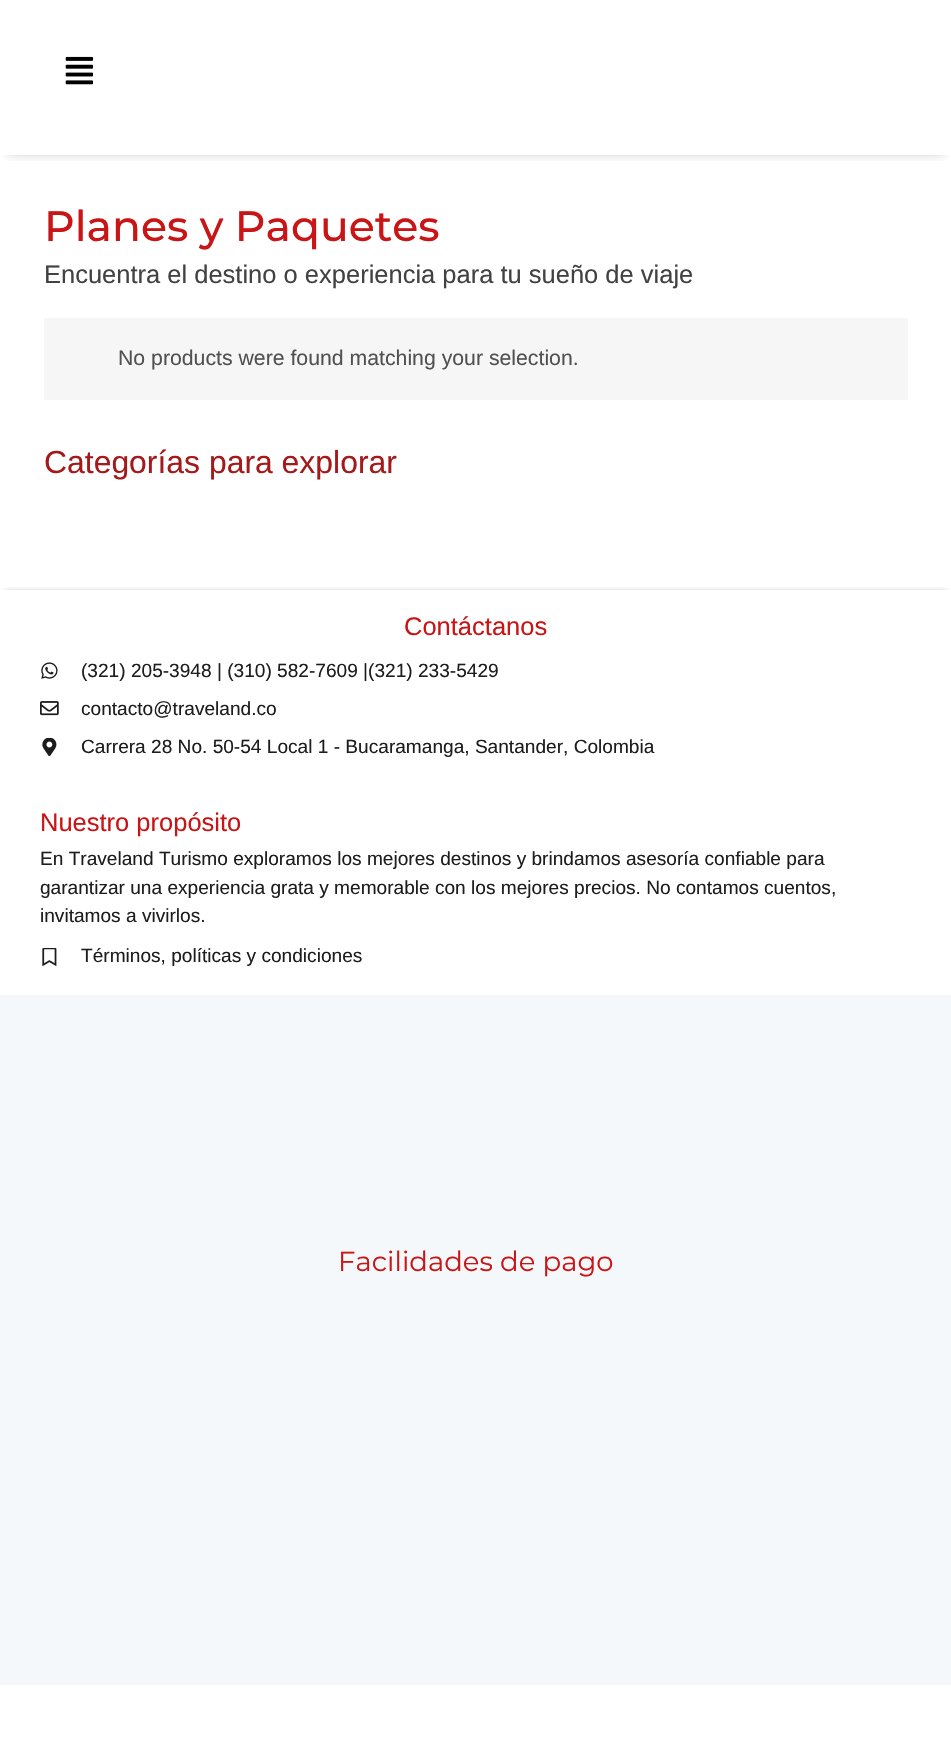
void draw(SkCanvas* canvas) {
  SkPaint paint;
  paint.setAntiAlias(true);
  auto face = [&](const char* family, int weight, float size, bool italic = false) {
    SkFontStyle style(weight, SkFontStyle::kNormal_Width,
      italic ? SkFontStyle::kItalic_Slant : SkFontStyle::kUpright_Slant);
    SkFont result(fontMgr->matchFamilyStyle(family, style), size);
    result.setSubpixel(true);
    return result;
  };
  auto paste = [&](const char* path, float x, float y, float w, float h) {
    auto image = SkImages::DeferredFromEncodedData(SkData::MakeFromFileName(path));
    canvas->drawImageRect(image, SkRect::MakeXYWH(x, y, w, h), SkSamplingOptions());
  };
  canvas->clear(0xffffffff);
  canvas->save();
  canvas->clipRect(SkRect::MakeXYWH(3, 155, 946, 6));
  paint.setColor(0x80000000);
  paint.setMaskFilter(SkMaskFilter::MakeBlur(kNormal_SkBlurStyle, 7.5f));
  canvas->drawRect(SkRect::MakeXYWH(8, 8, 936, 140), paint);
  paint.setMaskFilter(nullptr);
  canvas->restore();
  paste("img/1.png", 65, 56, 29, 29);
  paint.setColor(0xfff7f6f7);
  canvas->drawRect(SkRect::MakeXYWH(44, 318, 864, 82), paint);
  canvas->save();
  canvas->clipRect(SkRect::MakeXYWH(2, 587, 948, 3));
  paint.setColor(0x80000000);
  paint.setMaskFilter(SkMaskFilter::MakeBlur(kNormal_SkBlurStyle, 4));
  canvas->drawRect(SkRect::MakeXYWH(4, 594, 944, 397), paint);
  paint.setMaskFilter(nullptr);
  canvas->restore();
  paste("img/2.png", 41, 662, 17, 17);
  paste("img/3.png", 40, 701, 19, 15);
  paste("img/4.png", 42, 738, 15, 18);
  paste("img/5.png", 42, 948, 15, 18);
  paint.setColor(0xfff5f8fa);
  canvas->drawRect(SkRect::MakeXYWH(0, 995, 951, 690), paint);
  auto f0 = face("Montserrat", 500, 42.5f);
  paint.setColor(0xffca1517);
  canvas->drawString("Planes y Paquetes", 44, 241, f0, paint);
  auto f1 = face("Liberation Sans", 400, 25.5f);
  paint.setColor(0xff424242);
  canvas->drawString("Encuentra el destino o experiencia para tu sueño de viaje", 44, 283, f1, paint);
  auto f2 = face("Liberation Sans", 400, 21.25f);
  paint.setColor(0xff515151);
  canvas->drawString("No products were found matching your selection.", 118, 365, f2, paint);
  auto f3 = face("Liberation Sans", 400, 31.9f);
  paint.setColor(0xffa41a1b);
  canvas->drawString("Categorías para explorar", 44, 473, f3, paint);
  paint.setColor(0xffca1517);
  canvas->drawString("Contáctanos", 404, 635, f1, paint);
  auto f4 = face("Liberation Sans", 400, 19.1f);
  paint.setColor(0xff1d1d1d);
  {
    const struct { const char* s; float x, y; } items[] = {
      {"(321) 205-3948 | (310) 582-7609 |(321) 233-5429", 81, 677},
      {"contacto@traveland.co", 81, 715},
      {"Carrera 28 No. 50-54 Local 1 - Bucaramanga, Santander, Colombia", 81, 753},
    };
    for (auto [s, x, y] : items) {
      canvas->drawString(s, x, y, f4, paint);
    }
  }
  paint.setColor(0xffca1517);
  canvas->drawString("Nuestro propósito", 40, 831, f1, paint);
  paint.setColor(0xff1d1d1d);
  {
    const struct { const char* s; float x, y; } items[] = {
      {"En Traveland Turismo exploramos los mejores destinos y brindamos asesoría confiable para", 40, 865},
      {"garantizar una experiencia grata y memorable con los mejores precios. No contamos cuentos,", 40, 894},
      {"invitamos a vivirlos.", 40, 922},
      {"Términos, políticas y condiciones", 81, 962},
    };
    for (auto [s, x, y] : items) {
      canvas->drawString(s, x, y, f4, paint);
    }
  }
  auto f5 = face("Montserrat", 400, 27.5f);
  paint.setColor(0xffca1517);
  canvas->drawString("Facilidades de pago", 338, 1271, f5, paint);
}
